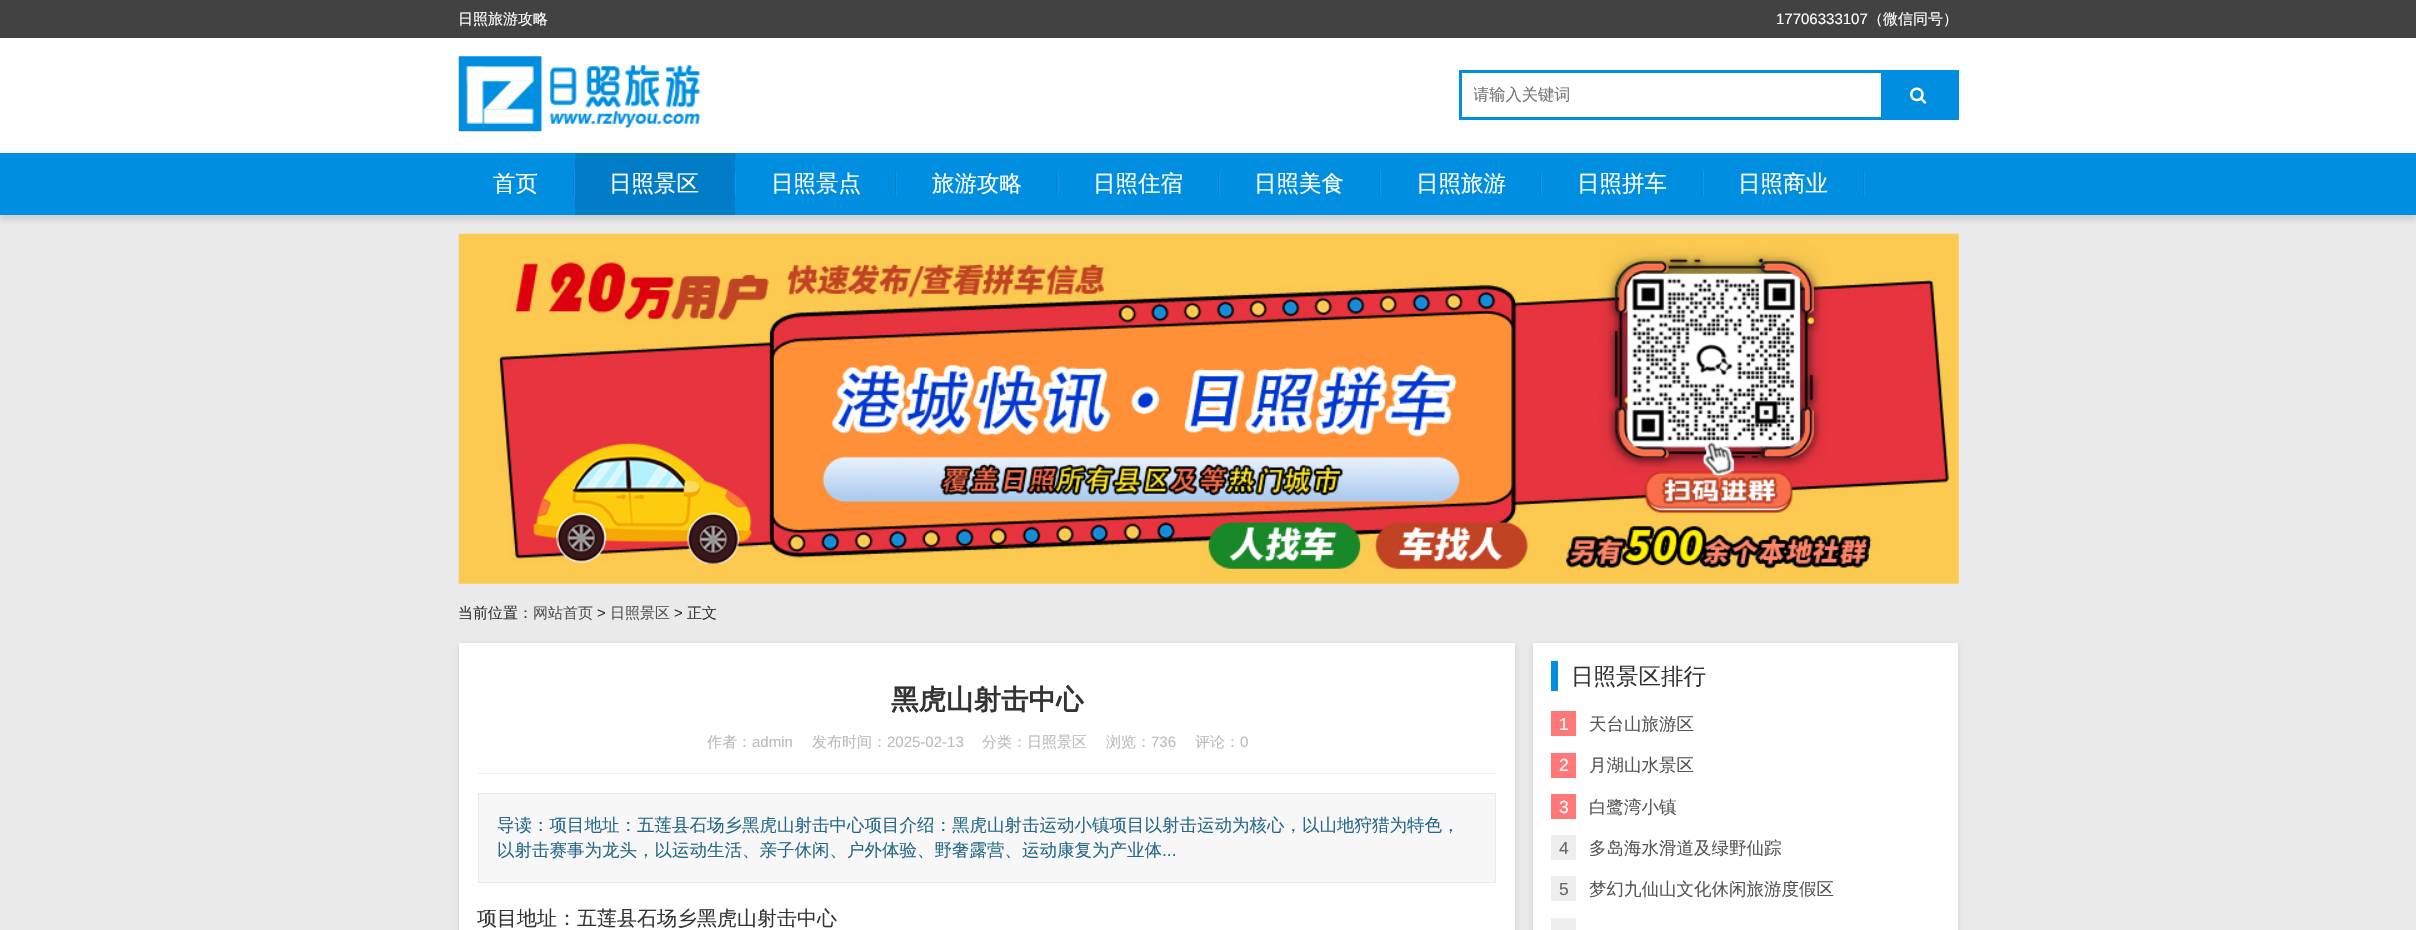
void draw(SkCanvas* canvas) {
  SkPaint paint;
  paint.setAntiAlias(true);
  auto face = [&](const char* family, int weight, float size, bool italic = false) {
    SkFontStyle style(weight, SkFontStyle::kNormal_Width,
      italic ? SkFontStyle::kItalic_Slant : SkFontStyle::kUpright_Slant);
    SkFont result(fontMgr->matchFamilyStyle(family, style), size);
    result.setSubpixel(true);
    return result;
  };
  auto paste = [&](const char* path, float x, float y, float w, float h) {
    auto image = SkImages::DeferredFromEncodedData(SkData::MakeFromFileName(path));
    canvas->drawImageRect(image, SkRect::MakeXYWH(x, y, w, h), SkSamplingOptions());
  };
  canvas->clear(0xffeaeaea);
  paint.setColor(0xff424242);
  canvas->drawRect(SkRect::MakeXYWH(0, 0, 2416, 38), paint);
  paint.setColor(0xffffffff);
  canvas->drawRect(SkRect::MakeXYWH(0, 38, 2416, 115), paint);
  paste("img/1.png", 458, 56, 243, 76);
  paint.setStroke(true);
  paint.setStrokeWidth(3);
  paint.setColor(0xff008ee1);
  canvas->drawRect(SkRect::MakeXYWH(1460.5f, 71.5f, 497, 47), paint);
  paint.setStroke(false);
  canvas->drawRect(SkRect::MakeXYWH(1881, 73, 75, 44), paint);
  paste("img/2.png", 1910, 87, 17, 17);
  paint.setColor(0xffd0d0d0);
  paint.setMaskFilter(SkMaskFilter::MakeBlur(kNormal_SkBlurStyle, 2.5f));
  canvas->drawRect(SkRect::MakeXYWH(0, 158, 2416, 62), paint);
  paint.setMaskFilter(nullptr);
  {
    const struct { float x, y, w, h; SkColor color; } items[] = {
      {0, 153, 2416, 62, 0xff008ee1},
      {574, 171, 1, 25, 0xff019cf6},
      {573, 171, 1, 25, 0xff027ec6},
      {575, 153, 160, 62, 0xff007dc6},
      {735, 171, 1, 25, 0xff019cf6},
      {896, 171, 1, 25, 0xff019cf6},
      {895, 171, 1, 25, 0xff027ec6},
      {1058, 171, 1, 25, 0xff019cf6},
      {1056, 171, 1, 25, 0xff027ec6},
      {1219, 171, 1, 25, 0xff019cf6},
      {1218, 171, 1, 25, 0xff027ec6},
      {1380, 171, 1, 25, 0xff019cf6},
      {1379, 171, 1, 25, 0xff027ec6},
      {1541, 171, 1, 25, 0xff019cf6},
      {1540, 171, 1, 25, 0xff027ec6},
      {1703, 171, 1, 25, 0xff019cf6},
      {1701, 171, 1, 25, 0xff027ec6},
      {1864, 171, 1, 25, 0xff019cf6},
      {1863, 171, 1, 25, 0xff027ec6},
    };
    for (auto [x, y, w, h, color] : items) {
      paint.setColor(color);
      canvas->drawRect(SkRect::MakeXYWH(x, y, w, h), paint);
    }
  }
  paste("img/3.png", 458, 233, 1501, 351);
  paint.setColor(0xffcccccc);
  paint.setMaskFilter(SkMaskFilter::MakeBlur(kNormal_SkBlurStyle, 2));
  canvas->drawRect(SkRect::MakeXYWH(459, 644, 1056, 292), paint);
  paint.setMaskFilter(nullptr);
  paint.setColor(0xffffffff);
  canvas->drawRect(SkRect::MakeXYWH(459, 643, 1056, 287), paint);
  paint.setColor(0xffeeeeee);
  canvas->drawRect(SkRect::MakeXYWH(478, 773, 1018, 1), paint);
  paint.setColor(0xfff7f7f7);
  canvas->drawRect(SkRect::MakeXYWH(478.5f, 793.5f, 1017, 89), paint);
  paint.setStroke(true);
  paint.setStrokeWidth(1);
  paint.setColor(0xffe9e9e9);
  canvas->drawRect(SkRect::MakeXYWH(478.5f, 793.5f, 1017, 89), paint);
  paint.setStroke(false);
  paint.setColor(0xffcccccc);
  paint.setMaskFilter(SkMaskFilter::MakeBlur(kNormal_SkBlurStyle, 2));
  canvas->drawRect(SkRect::MakeXYWH(1533, 644, 425, 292), paint);
  paint.setMaskFilter(nullptr);
  {
    const struct { float x, y, w, h; SkColor color; } items[] = {
      {1533, 643, 425, 287, 0xffffffff},
      {1551, 661, 7, 30, 0xff008ee1},
      {1551, 711, 25, 25, 0xffff7777},
      {1551, 753, 25, 25, 0xffff7777},
      {1551, 794, 25, 25, 0xffff7777},
      {1551, 835, 25, 25, 0xffeeeeee},
      {1551, 876, 25, 25, 0xffeeeeee},
      {1551, 918, 25, 12, 0xffeeeeee},
    };
    for (auto [x, y, w, h, color] : items) {
      paint.setColor(color);
      canvas->drawRect(SkRect::MakeXYWH(x, y, w, h), paint);
    }
  }
  auto f0 = face("WenQuanYi Zen Hei", 500, 15);
  paint.setColor(0xffffffff);
  canvas->drawString("日照旅游攻略", 458, 24, f0, paint);
  auto f1 = face("Liberation Sans", 400, 15);
  canvas->drawString("17706333107", 1776, 24, f1, paint);
  canvas->drawString("（微信同号）", 1868, 24, f0, paint);
  canvas->save();
  canvas->clipRect(SkRect::MakeXYWH(1474, 84, 395, 22));
  auto f2 = face("WenQuanYi Zen Hei", 500, 16.25f);
  paint.setColor(0xff757575);
  canvas->drawString("请输入关键词", 1473, 100, f2, paint);
  canvas->restore();
  auto f3 = face("WenQuanYi Zen Hei", 500, 22.5f);
  paint.setColor(0xffffffff);
  {
    const struct { const char* s; float x, y; } items[] = {
      {"首页", 493, 191},
      {"日照景区", 609, 191},
      {"日照景点", 771, 191},
      {"旅游攻略", 932, 191},
      {"日照住宿", 1093, 191},
      {"日照美食", 1254, 191},
      {"日照旅游", 1416, 191},
      {"日照拼车", 1577, 191},
      {"日照商业", 1738, 191},
    };
    for (auto [s, x, y] : items) {
      canvas->drawString(s, x, y, f3, paint);
    }
  }
  paint.setColor(0xff333333);
  canvas->drawString("当前位置：", 458, 618, f0, paint);
  paint.setColor(0xff555555);
  canvas->drawString("网站首页", 533, 618, f0, paint);
  paint.setColor(0xff333333);
  canvas->drawString(">", 597, 618, f1, paint);
  paint.setColor(0xff555555);
  canvas->drawString("日照景区", 610, 618, f0, paint);
  paint.setColor(0xff333333);
  canvas->drawString(">", 674, 618, f1, paint);
  canvas->drawString("正文", 687, 618, f0, paint);
  auto f4 = face("WenQuanYi Zen Hei", 700, 27.5f);
  canvas->drawString("黑虎山射击中心", 891, 709, f4, paint);
  paint.setColor(0xffbbbbbb);
  canvas->drawString("作者：", 707, 747, f0, paint);
  canvas->drawString("admin", 752, 747, f1, paint);
  canvas->drawString("发布时间：", 812, 747, f0, paint);
  canvas->drawString("2025-02-13", 887, 747, f1, paint);
  canvas->drawString("分类：日照景区", 982, 747, f0, paint);
  canvas->drawString("浏览：", 1106, 747, f0, paint);
  canvas->drawString("736", 1151, 747, f1, paint);
  canvas->drawString("评论：", 1195, 747, f0, paint);
  canvas->drawString("0", 1240, 747, f1, paint);
  auto f5 = face("WenQuanYi Zen Hei", 500, 17.5f);
  paint.setColor(0xff266889);
  canvas->drawString("导读：项目地址：五莲县石场乡黑虎山射击中心项目介绍：黑虎山射击运动小镇项目以射击运动为核心，以山地狩猎为特色，", 497, 831, f5, paint);
  canvas->drawString("以射击赛事为龙头，以运动生活、亲子休闲、户外体验、野奢露营、运动康复为产业体", 497, 856, f5, paint);
  auto f6 = face("Liberation Sans", 400, 17.5f);
  canvas->drawString("...", 1162, 856, f6, paint);
  auto f7 = face("WenQuanYi Zen Hei", 500, 20);
  paint.setColor(0xff333333);
  canvas->drawString("项目地址：五莲县石场乡黑虎山射击中心", 477, 925, f7, paint);
  canvas->drawString("日照景区排行", 1571, 684, f3, paint);
  paint.setColor(0xffffffff);
  canvas->drawString("1", 1559, 730, f6, paint);
  paint.setColor(0xff555555);
  canvas->drawString("天台山旅游区", 1589, 730, f5, paint);
  paint.setColor(0xffffffff);
  canvas->drawString("2", 1559, 771, f6, paint);
  paint.setColor(0xff555555);
  canvas->drawString("月湖山水景区", 1589, 771, f5, paint);
  paint.setColor(0xffffffff);
  canvas->drawString("3", 1559, 813, f6, paint);
  paint.setColor(0xff555555);
  canvas->drawString("白鹭湾小镇", 1589, 813, f5, paint);
  paint.setColor(0xff666666);
  canvas->drawString("4", 1559, 854, f6, paint);
  paint.setColor(0xff555555);
  canvas->drawString("多岛海水滑道及绿野仙踪", 1589, 854, f5, paint);
  paint.setColor(0xff666666);
  canvas->drawString("5", 1559, 895, f6, paint);
  paint.setColor(0xff555555);
  canvas->drawString("梦幻九仙山文化休闲旅游度假区", 1589, 895, f5, paint);
}
